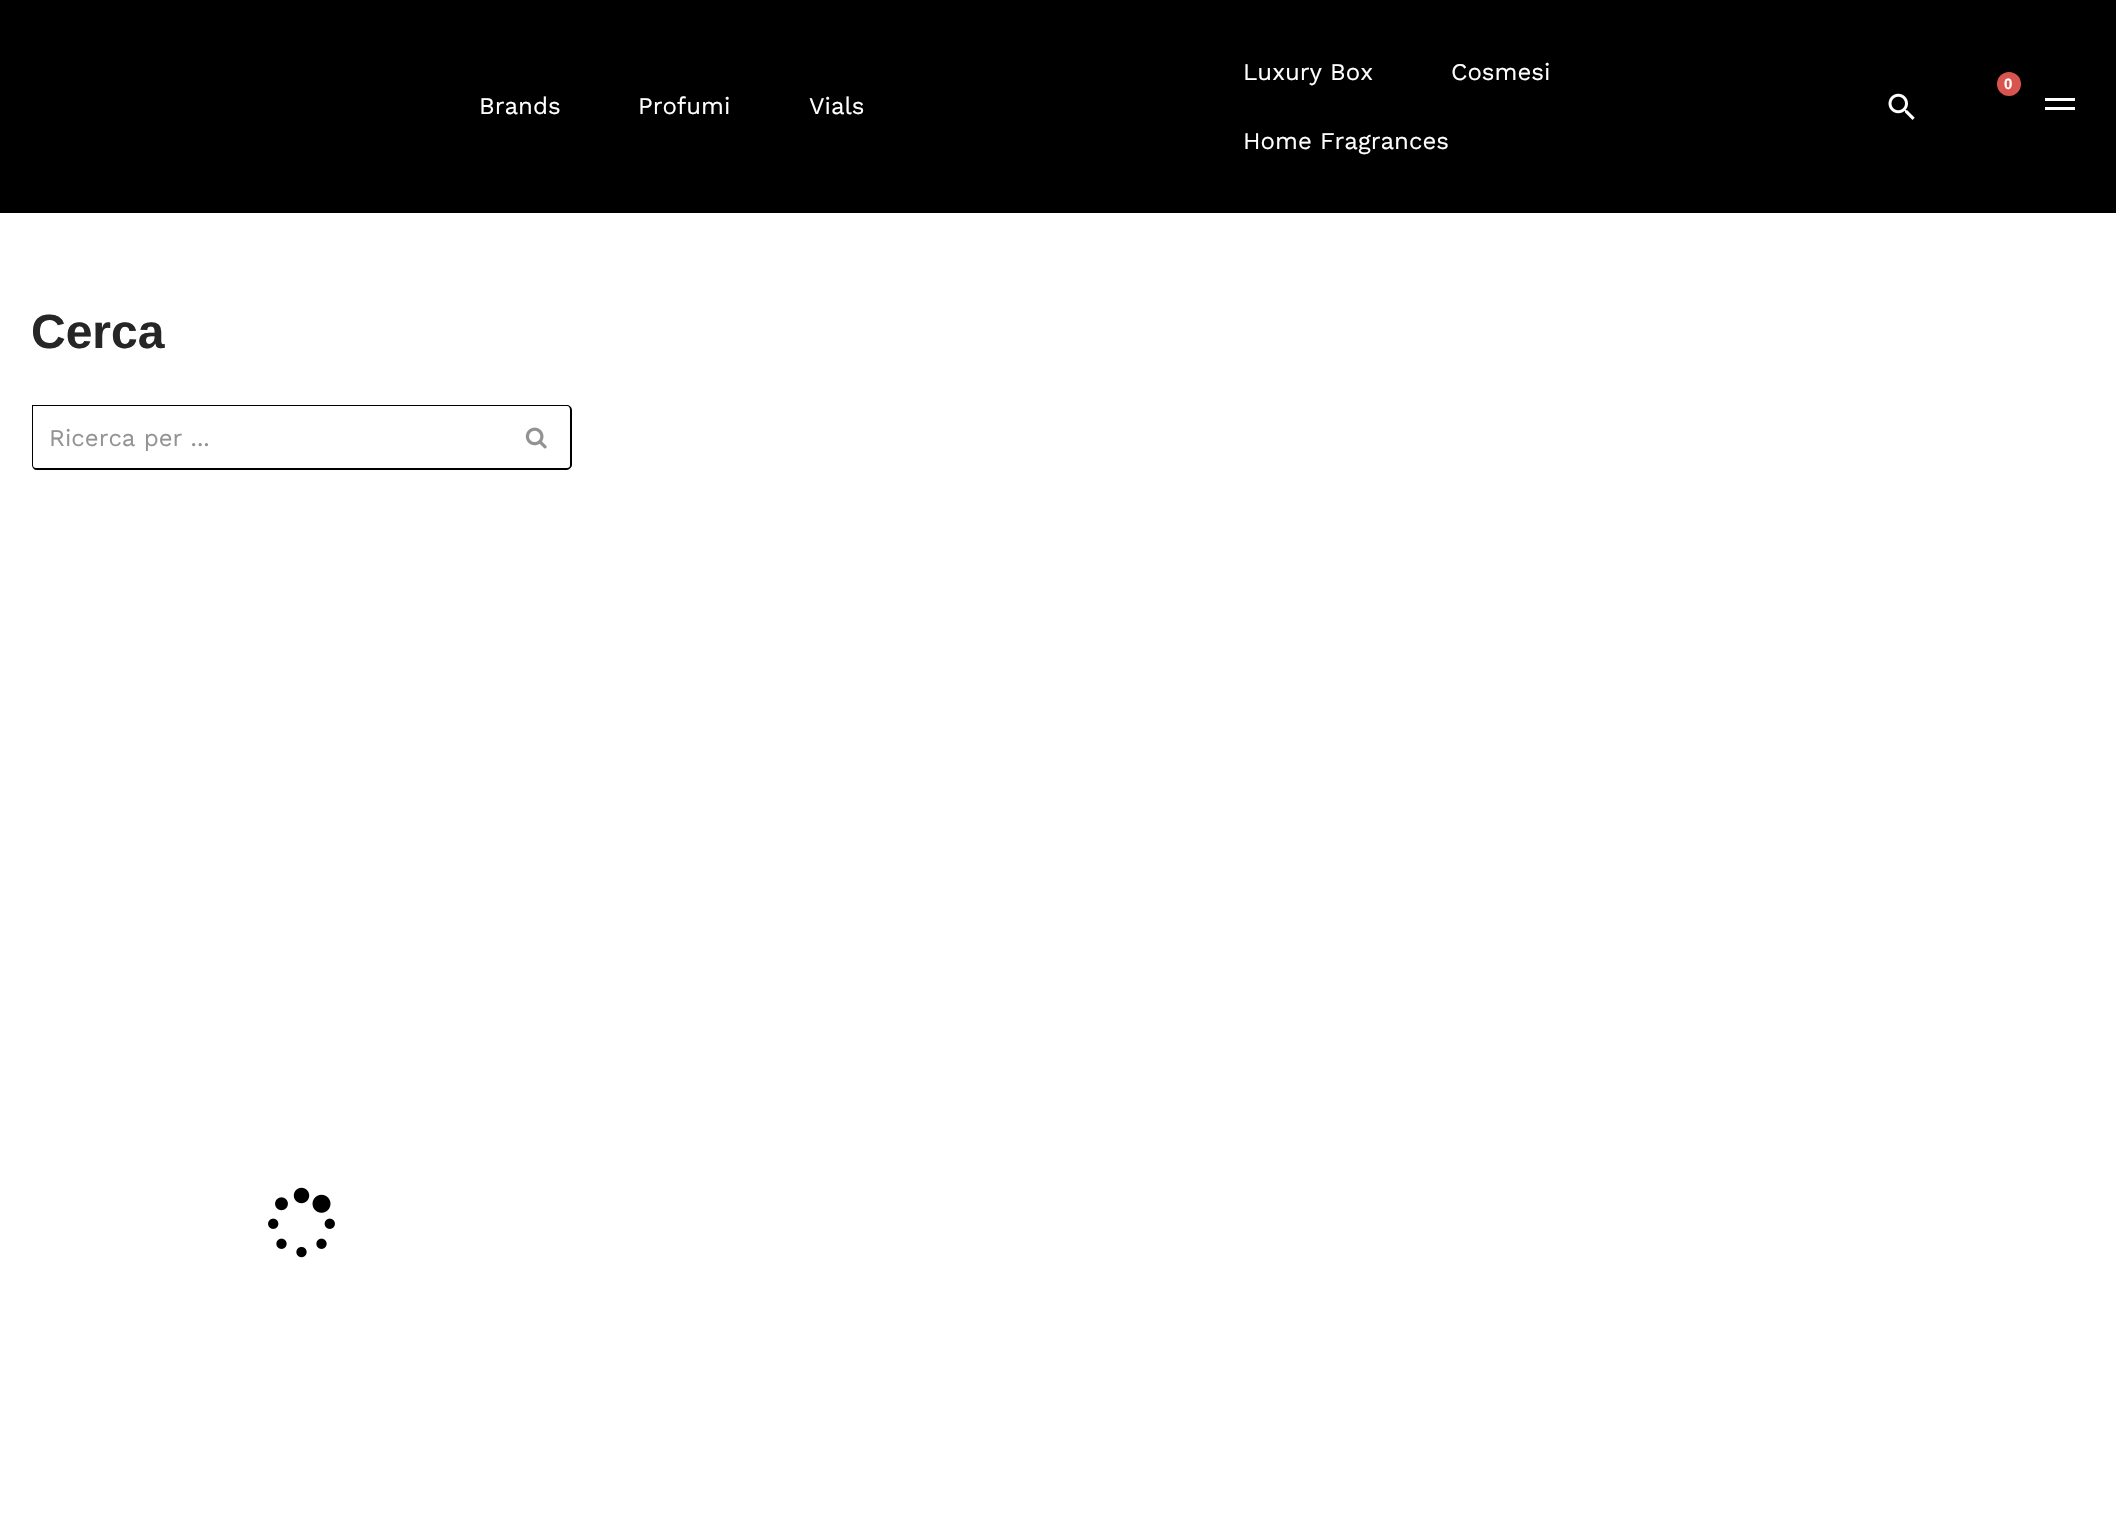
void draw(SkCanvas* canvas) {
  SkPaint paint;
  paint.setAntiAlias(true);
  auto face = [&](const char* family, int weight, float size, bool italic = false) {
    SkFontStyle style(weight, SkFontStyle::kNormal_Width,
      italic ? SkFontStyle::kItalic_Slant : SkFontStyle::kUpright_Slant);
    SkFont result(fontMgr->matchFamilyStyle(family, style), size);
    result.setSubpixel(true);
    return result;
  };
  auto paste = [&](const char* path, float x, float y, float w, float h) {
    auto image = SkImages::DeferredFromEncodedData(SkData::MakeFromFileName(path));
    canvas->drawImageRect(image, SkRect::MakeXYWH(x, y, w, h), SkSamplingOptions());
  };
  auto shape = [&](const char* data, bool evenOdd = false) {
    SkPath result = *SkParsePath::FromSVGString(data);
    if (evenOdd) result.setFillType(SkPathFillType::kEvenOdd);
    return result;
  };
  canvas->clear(0xffffffff);
  paint.setColor(0xff000000);
  canvas->drawRect(SkRect::MakeXYWH(0, 0, 2116, 213), paint);
  paint.setColor(0xffd9534f);
  canvas->drawCircle(2009, 84, 12, paint);
  paste("img/1.png", 1888, 93, 27, 27);
  paint.setColor(0xffffffff);
  canvas->drawRect(SkRect::MakeXYWH(2045, 98, 30, 3), paint);
  canvas->drawRect(SkRect::MakeXYWH(2045, 107, 30, 3), paint);
  paint.setColor(0xff000000);
  canvas->drawPath(shape("M32 405H504V470H36C34 470 32 467 32 465ZM33 406H504V468H36C34 468 33 467 33 465Z", true), paint);
  canvas->drawPath(shape("M504 405H567C569 405 572 407 572 410V465C572 467 569 470 567 470H504ZM504 406H567C569 406 570 408 570 410V465C570 467 569 468 567 468H504Z", true), paint);
  paste("img/2.png", 525, 427, 22, 22);
  paste("img/3.png", 268, 1187, 67, 71);
  auto f0 = face("Work Sans", 400, 24);
  paint.setColor(0xffffffff);
  {
    const struct { const char* s; float x, y; } items[] = {
      {"Luxury Box", 1243, 80},
      {"Cosmesi", 1451, 80},
      {"Home Fragrances", 1243, 149},
    };
    for (auto [s, x, y] : items) {
      canvas->drawString(s, x, y, f0, paint);
    }
  }
  auto f1 = face("Liberation Sans", 700, 15);
  canvas->drawString("0", 2004, 89, f1, paint);
  {
    const struct { const char* s; float x, y; } items[] = {
      {"Brands", 479, 114},
      {"Profumi", 638, 114},
      {"Vials", 809, 114},
    };
    for (auto [s, x, y] : items) {
      canvas->drawString(s, x, y, f0, paint);
    }
  }
  auto f2 = face("Liberation Sans", 700, 48);
  paint.setColor(0xff272626);
  canvas->drawString("Cerca", 31, 348, f2, paint);
  paint.setColor(0xff939393);
  canvas->drawString("Ricerca per ...", 49, 446, f0, paint);
}
